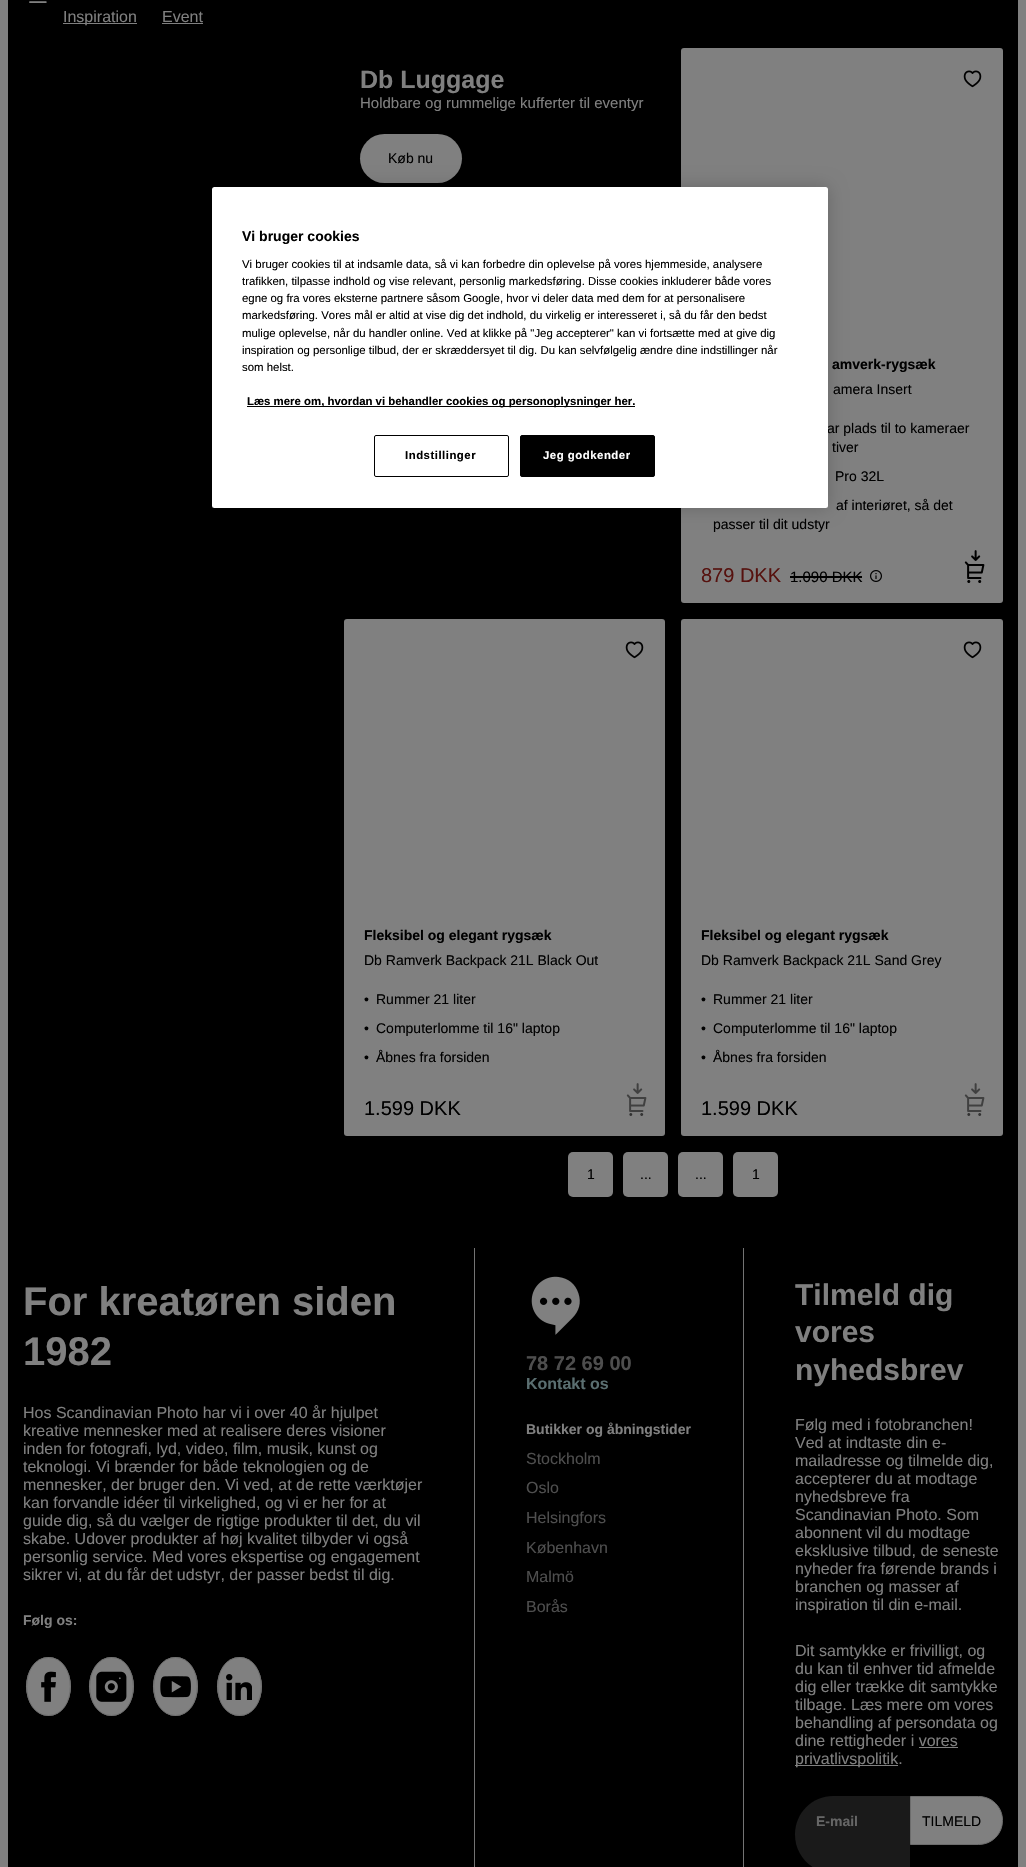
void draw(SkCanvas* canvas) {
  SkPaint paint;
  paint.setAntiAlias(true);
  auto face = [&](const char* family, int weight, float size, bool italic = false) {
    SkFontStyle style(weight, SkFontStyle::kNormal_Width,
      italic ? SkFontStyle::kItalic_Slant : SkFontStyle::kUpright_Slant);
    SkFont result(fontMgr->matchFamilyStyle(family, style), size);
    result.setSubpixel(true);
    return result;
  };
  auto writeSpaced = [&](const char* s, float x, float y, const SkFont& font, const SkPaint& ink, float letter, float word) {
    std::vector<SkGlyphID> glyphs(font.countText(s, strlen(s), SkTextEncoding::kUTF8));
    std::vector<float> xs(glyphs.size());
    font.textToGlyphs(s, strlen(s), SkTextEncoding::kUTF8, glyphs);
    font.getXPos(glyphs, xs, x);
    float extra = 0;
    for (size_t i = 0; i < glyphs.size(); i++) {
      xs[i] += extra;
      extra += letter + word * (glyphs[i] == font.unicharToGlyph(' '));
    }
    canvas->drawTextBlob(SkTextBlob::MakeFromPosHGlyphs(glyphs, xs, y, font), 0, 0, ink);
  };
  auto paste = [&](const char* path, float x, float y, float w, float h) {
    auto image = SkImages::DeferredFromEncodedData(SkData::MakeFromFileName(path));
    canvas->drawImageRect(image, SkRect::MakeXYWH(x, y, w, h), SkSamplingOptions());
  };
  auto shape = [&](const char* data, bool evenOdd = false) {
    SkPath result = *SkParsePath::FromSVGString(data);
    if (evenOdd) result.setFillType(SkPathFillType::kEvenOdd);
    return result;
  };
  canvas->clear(0xff808080);
  paint.setColor(0xff000000);
  canvas->drawRect(SkRect::MakeXYWH(8, 0, 1010, 1867), paint);
  paste("img/1.png", 29, 1, 18, 2);
  paint.setColor(0xff808080);
  canvas->drawRect(SkRect::MakeXYWH(63, 23, 74, 1), paint);
  canvas->drawRect(SkRect::MakeXYWH(162, 23, 41, 1), paint);
  canvas->drawRoundRect(SkRect::MakeXYWH(360, 134, 102, 49), 24.5f, 24.5f, paint);
  canvas->drawRoundRect(SkRect::MakeXYWH(681, 48, 322, 555), 3, 3, paint);
  paste("img/2.png", 963, 70, 19, 18);
  paint.setColor(0xff000000);
  canvas->drawRect(SkRect::MakeXYWH(790, 576, 72, 2), paint);
  paste("img/3.png", 870, 570, 12, 12);
  paste("img/4.png", 964, 550, 21, 33);
  paint.setColor(0xff808080);
  canvas->drawRoundRect(SkRect::MakeXYWH(344, 619, 321, 517), 3, 3, paint);
  paste("img/2.png", 625, 641, 19, 18);
  paste("img/5.png", 626, 1083, 21, 33);
  canvas->drawRoundRect(SkRect::MakeXYWH(681, 619, 322, 517), 3, 3, paint);
  paste("img/2.png", 963, 641, 19, 18);
  paste("img/5.png", 964, 1083, 21, 33);
  canvas->drawRoundRect(SkRect::MakeXYWH(568, 1152, 45, 45), 5, 5, paint);
  canvas->drawRoundRect(SkRect::MakeXYWH(623, 1152, 45, 45), 5, 5, paint);
  canvas->drawRoundRect(SkRect::MakeXYWH(678, 1152, 45, 45), 5, 5, paint);
  canvas->drawRoundRect(SkRect::MakeXYWH(733, 1152, 45, 45), 5, 5, paint);
  canvas->drawOval(SkRect::MakeXYWH(26, 1657, 45, 59), paint);
  paint.setStroke(true);
  paint.setStrokeWidth(1);
  paint.setColor(0xff6c6c6c);
  canvas->drawPath(shape("M48.5 1657.5C77.5 1657.5 77.5 1715.5 48.5 1715.5C19.5 1715.5 19.5 1657.5 48.5 1657.5Z"), paint);
  paste("img/6.png", 41, 1671, 15, 31);
  paint.setStroke(false);
  paint.setColor(0xff808080);
  canvas->drawOval(SkRect::MakeXYWH(89, 1657, 45, 59), paint);
  paint.setStroke(true);
  paint.setColor(0xff6c6c6c);
  canvas->drawPath(shape("M111.5 1657.5C140.5 1657.5 140.5 1715.5 111.5 1715.5C82.5 1715.5 82.5 1657.5 111.5 1657.5Z"), paint);
  paste("img/7.png", 96, 1671, 31, 31);
  paint.setStroke(false);
  paint.setColor(0xff808080);
  canvas->drawOval(SkRect::MakeXYWH(153, 1657, 45, 59), paint);
  paint.setStroke(true);
  paint.setColor(0xff6c6c6c);
  canvas->drawPath(shape("M175.5 1657.5C204.5 1657.5 204.5 1715.5 175.5 1715.5C146.5 1715.5 146.5 1657.5 175.5 1657.5Z"), paint);
  paste("img/8.png", 160, 1676, 31, 22);
  paint.setStroke(false);
  paint.setColor(0xff808080);
  canvas->drawOval(SkRect::MakeXYWH(217, 1657, 45, 59), paint);
  paint.setStroke(true);
  paint.setColor(0xff6c6c6c);
  canvas->drawPath(shape("M239.5 1657.5C268.5 1657.5 268.5 1715.5 239.5 1715.5C210.5 1715.5 210.5 1657.5 239.5 1657.5Z"), paint);
  paste("img/9.png", 226, 1674, 26, 26);
  paint.setStroke(false);
  paint.setColor(0xff737373);
  canvas->drawRect(SkRect::MakeXYWH(474, 1248, 1, 619), paint);
  paste("img/10.png", 531, 1276, 49, 59);
  {
    const struct { float x, y, w, h; SkColor color; } items[] = {
      {743, 1248, 1, 619, 0xff737373},
      {919, 1747, 39, 1, 0xff808080},
      {795, 1765, 103, 1, 0xff808080},
    };
    for (auto [x, y, w, h, color] : items) {
      paint.setColor(color);
      canvas->drawRect(SkRect::MakeXYWH(x, y, w, h), paint);
    }
  }
  paint.setColor(0xff1a1a1a);
  canvas->drawPath(shape("M833.5 1796H910V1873H833.5C812 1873 795 1856 795 1834.5C795 1813 812 1796 833.5 1796Z"), paint);
  paint.setColor(0xff808080);
  canvas->drawPath(shape("M910.5 1796.5H978.5C992 1796.5 1002.5 1807 1002.5 1820.5C1002.5 1834 992 1844.5 978.5 1844.5H910.5Z"), paint);
  paint.setStroke(true);
  paint.setColor(0xff6c6c6c);
  canvas->drawPath(shape("M910.5 1796.5H978.5C992 1796.5 1002.5 1807 1002.5 1820.5C1002.5 1834 992 1844.5 978.5 1844.5H910.5Z"), paint);
  paint.setStroke(false);
  paint.setColor(0x33000000);
  paint.setMaskFilter(SkMaskFilter::MakeBlur(kNormal_SkBlurStyle, 9));
  canvas->drawRoundRect(SkRect::MakeXYWH(212, 187, 616, 321), 2.5f, 2.5f, paint);
  paint.setMaskFilter(nullptr);
  auto f0 = face("Liberation Sans", 400, 16);
  paint.setColor(0xff808080);
  canvas->drawString("Inspiration", 63, 22, f0, paint);
  canvas->drawString("Event", 162, 22, f0, paint);
  auto f1 = face("Liberation Sans", 700, 25);
  canvas->drawString("Db Luggage", 360, 88, f1, paint);
  auto f2 = face("Liberation Sans", 400, 15);
  canvas->drawString("Holdbare og rummelige kufferter til eventyr", 360, 108, f2, paint);
  auto f3 = face("Liberation Sans", 400, 14);
  paint.setColor(0xff000000);
  canvas->drawString("Køb nu", 388, 163, f3, paint);
  auto f4 = face("Liberation Sans", 700, 14);
  canvas->drawString("amverk-rygsæk", 832, 369, f4, paint);
  {
    const struct { const char* s; float x, y; } items[] = {
      {"amera Insert", 833, 394},
      {"ar plads til to kameraer", 827, 433},
      {"tiver", 832, 452},
      {"Pro 32L", 835, 481},
      {"af interiøret, så det", 836, 510},
      {"passer til dit udstyr", 713, 529},
    };
    for (auto [s, x, y] : items) {
      canvas->drawString(s, x, y, f3, paint);
    }
  }
  auto f5 = face("Liberation Sans", 400, 20);
  paint.setColor(0xff56110e);
  canvas->drawString("879 DKK", 701, 582, f5, paint);
  paint.setColor(0xff000000);
  canvas->drawString("1.090 DKK", 790, 582, f2, paint);
  canvas->drawString("Fleksibel og elegant rygsæk", 364, 940, f4, paint);
  {
    const struct { const char* s; float x, y; } items[] = {
      {"Db Ramverk Backpack 21L Black Out", 364, 965},
      {"•", 364, 1004},
      {"Rummer 21 liter", 376, 1004},
      {"•", 364, 1033},
      {"Computerlomme til 16\" laptop", 376, 1033},
      {"•", 364, 1062},
      {"Åbnes fra forsiden", 376, 1062},
    };
    for (auto [s, x, y] : items) {
      canvas->drawString(s, x, y, f3, paint);
    }
  }
  canvas->drawString("1.599 DKK", 364, 1115, f5, paint);
  canvas->drawString("Fleksibel og elegant rygsæk", 701, 940, f4, paint);
  {
    const struct { const char* s; float x, y; } items[] = {
      {"Db Ramverk Backpack 21L Sand Grey", 701, 965},
      {"•", 701, 1004},
      {"Rummer 21 liter", 713, 1004},
      {"•", 701, 1033},
      {"Computerlomme til 16\" laptop", 713, 1033},
      {"•", 701, 1062},
      {"Åbnes fra forsiden", 713, 1062},
    };
    for (auto [s, x, y] : items) {
      canvas->drawString(s, x, y, f3, paint);
    }
  }
  canvas->drawString("1.599 DKK", 701, 1115, f5, paint);
  {
    const struct { const char* s; float x, y; } items[] = {
      {"1", 587, 1179},
      {"...", 640, 1179},
      {"...", 695, 1179},
      {"1", 752, 1179},
    };
    for (auto [s, x, y] : items) {
      canvas->drawString(s, x, y, f3, paint);
    }
  }
  auto f6 = face("Liberation Sans", 700, 40);
  paint.setColor(0xff808080);
  canvas->drawString("For kreatøren siden", 23, 1315, f6, paint);
  canvas->drawString("1982", 23, 1365, f6, paint);
  {
    const struct { const char* s; float x, y; } items[] = {
      {"Hos Scandinavian Photo har vi i over 40 år hjulpet", 23, 1418},
      {"kreative mennesker med at realisere deres visioner", 23, 1436},
      {"inden for fotografi, lyd, video, film, musik, kunst og", 23, 1454},
      {"teknologi. Vi brænder for både teknologien og de", 23, 1472},
      {"mennesker, der bruger den. Vi ved, at de rette værktøjer", 23, 1490},
      {"kan forvandle idéer til virkelighed, og vi er her for at", 23, 1508},
      {"guide dig, så du vælger de rigtige produkter til det, du vil", 23, 1526},
      {"skabe. Udover produkter af høj kvalitet tilbyder vi også", 23, 1544},
      {"personlig service. Med vores ekspertise og engagement", 23, 1562},
      {"sikrer vi, at du får det udstyr, der passer bedst til dig.", 23, 1580},
    };
    for (auto [s, x, y] : items) {
      canvas->drawString(s, x, y, f0, paint);
    }
  }
  canvas->drawString("Følg os:", 23, 1625, f4, paint);
  auto f7 = face("Liberation Sans", 700, 20);
  paint.setColor(0xff4e4e4e);
  canvas->drawString("78 72 69 00", 526, 1370, f7, paint);
  auto f8 = face("Liberation Sans", 700, 16);
  paint.setColor(0xff5a6e70);
  canvas->drawString("Kontakt os", 526, 1389, f8, paint);
  paint.setColor(0xff808080);
  canvas->drawString("Butikker og åbningstider", 526, 1434, f4, paint);
  paint.setColor(0xff4e4e4e);
  {
    const struct { const char* s; float x, y; } items[] = {
      {"Stockholm", 526, 1464},
      {"Oslo", 526, 1493},
      {"Helsingfors", 526, 1523},
      {"København", 526, 1553},
      {"Malmö", 526, 1582},
      {"Borås", 526, 1612},
    };
    for (auto [s, x, y] : items) {
      canvas->drawString(s, x, y, f0, paint);
    }
  }
  auto f9 = face("Liberation Sans", 700, 30);
  paint.setColor(0xff808080);
  {
    const struct { const char* s; float x, y; } items[] = {
      {"Tilmeld dig", 795, 1305},
      {"vores", 795, 1342},
      {"nyhedsbrev", 795, 1380},
    };
    for (auto [s, x, y] : items) {
      canvas->drawString(s, x, y, f9, paint);
    }
  }
  {
    const struct { const char* s; float x, y; } items[] = {
      {"Følg med i fotobranchen!", 795, 1430},
      {"Ved at indtaste din e-", 795, 1448},
      {"mailadresse og tilmelde dig,", 795, 1466},
      {"accepterer du at modtage", 795, 1484},
      {"nyhedsbreve fra", 795, 1502},
      {"Scandinavian Photo. Som", 795, 1520},
      {"abonnent vil du modtage", 795, 1538},
      {"eksklusive tilbud, de seneste", 795, 1556},
      {"nyheder fra førende brands i", 795, 1574},
      {"branchen og masser af", 795, 1592},
      {"inspiration til din e-mail.", 795, 1610},
      {"Dit samtykke er frivilligt, og", 795, 1656},
      {"du kan til enhver tid afmelde", 795, 1674},
      {"dig eller trække dit samtykke", 795, 1692},
      {"tilbage. Læs mere om vores", 795, 1710},
      {"behandling af persondata og", 795, 1728},
      {"dine rettigheder i vores", 795, 1746},
      {"privatlivspolitik.", 795, 1764},
    };
    for (auto [s, x, y] : items) {
      canvas->drawString(s, x, y, f0, paint);
    }
  }
  paint.setColor(0xff666666);
  canvas->drawString("E-mail", 816, 1826, f4, paint);
  paint.setColor(0xff000000);
  canvas->drawString("TILMELD", 922, 1826, f3, paint);
  paint.setColor(0xffffffff);
  canvas->drawRoundRect(SkRect::MakeXYWH(212, 187, 616, 321), 2.5f, 2.5f, paint);
  paint.setColor(0xff000000);
  canvas->drawString("Vi bruger cookies", 242, 241, f4, paint);
  auto f10 = face("Liberation Sans", 400, 11.4f);
  {
    const struct { const char* s; float x, y; } items[] = {
      {"Vi bruger cookies til at indsamle data, så vi kan forbedre din oplevelse på vores hjemmeside, analysere", 242, 268},
      {"trafikken, tilpasse indhold og vise relevant, personlig markedsføring. Disse cookies inkluderer både vores", 242, 285},
      {"egne og fra vores eksterne partnere såsom Google, hvor vi deler data med dem for at personalisere", 242, 302},
      {"markedsføring. Vores mål er altid at vise dig det indhold, du virkelig er interesseret i, så du får den bedst", 242, 319},
      {"mulige oplevelse, når du handler online. Ved at klikke på \"Jeg accepterer\" kan vi fortsætte med at give dig", 242, 337},
      {"inspiration og personlige tilbud, der er skræddersyet til dig. Du kan selvfølgelig ændre dine indstillinger når", 242, 354},
      {"som helst.", 242, 371},
    };
    for (auto [s, x, y] : items) {
      canvas->drawString(s, x, y, f10, paint);
    }
  }
  canvas->drawRect(SkRect::MakeXYWH(247, 406, 388, 1), paint);
  auto f11 = face("Liberation Sans", 700, 11.4f);
  canvas->drawString("Læs mere om, hvordan vi behandler cookies og personoplysninger her.", 247, 405, f11, paint);
  paint.setStroke(true);
  canvas->drawRoundRect(SkRect::MakeXYWH(374.5f, 435.5f, 134, 41), 1.5f, 1.5f, paint);
  paint.setStroke(false);
  writeSpaced("Indstillinger", 405, 459, f11, paint, 0.5f, 0);
  canvas->drawRoundRect(SkRect::MakeXYWH(520.5f, 435.5f, 134, 41), 1.5f, 1.5f, paint);
  paint.setStroke(true);
  canvas->drawRoundRect(SkRect::MakeXYWH(520.5f, 435.5f, 134, 41), 1.5f, 1.5f, paint);
  paint.setStroke(false);
  paint.setColor(0xffffffff);
  writeSpaced("Jeg godkender", 543, 459, f11, paint, 0.5f, 0);
}
